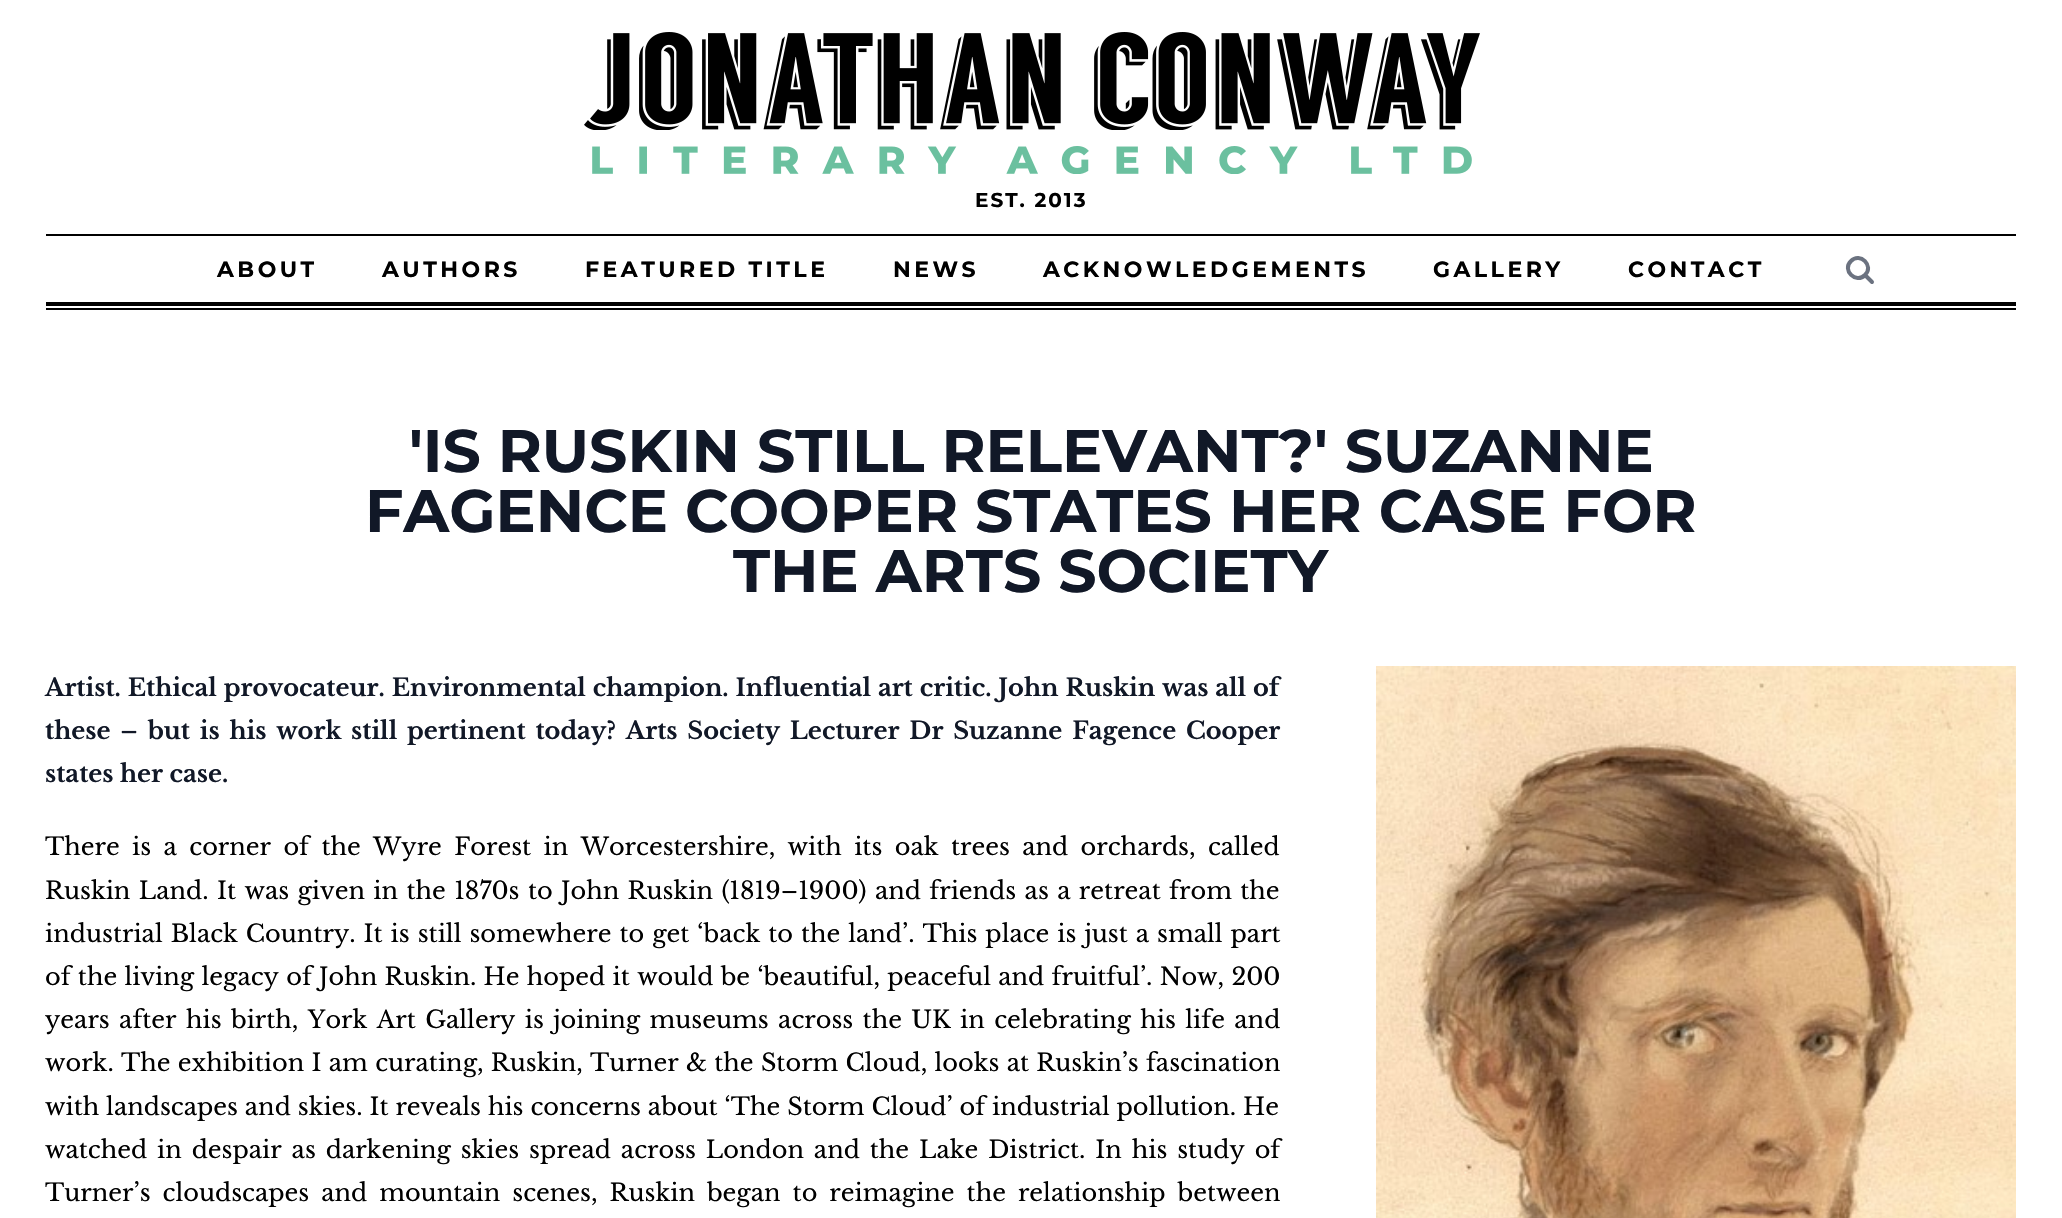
void draw(SkCanvas* canvas) {
  SkPaint paint;
  paint.setAntiAlias(true);
  auto face = [&](const char* family, int weight, float size, bool italic = false) {
    SkFontStyle style(weight, SkFontStyle::kNormal_Width,
      italic ? SkFontStyle::kItalic_Slant : SkFontStyle::kUpright_Slant);
    SkFont result(fontMgr->matchFamilyStyle(family, style), size);
    result.setSubpixel(true);
    return result;
  };
  auto writeSpaced = [&](const char* s, float x, float y, const SkFont& font, const SkPaint& ink, float letter, float word) {
    std::vector<SkGlyphID> glyphs(font.countText(s, strlen(s), SkTextEncoding::kUTF8));
    std::vector<float> xs(glyphs.size());
    font.textToGlyphs(s, strlen(s), SkTextEncoding::kUTF8, glyphs);
    font.getXPos(glyphs, xs, x);
    float extra = 0;
    for (size_t i = 0; i < glyphs.size(); i++) {
      xs[i] += extra;
      extra += letter + word * (glyphs[i] == font.unicharToGlyph(' '));
    }
    canvas->drawTextBlob(SkTextBlob::MakeFromPosHGlyphs(glyphs, xs, y, font), 0, 0, ink);
  };
  auto paste = [&](const char* path, float x, float y, float w, float h) {
    auto image = SkImages::DeferredFromEncodedData(SkData::MakeFromFileName(path));
    canvas->drawImageRect(image, SkRect::MakeXYWH(x, y, w, h), SkSamplingOptions());
  };
  auto shape = [&](const char* data, bool evenOdd = false) {
    SkPath result = *SkParsePath::FromSVGString(data);
    if (evenOdd) result.setFillType(SkPathFillType::kEvenOdd);
    return result;
  };
  canvas->clear(0xffffffff);
  paste("img/1.png", 584, 32, 896, 98);
  paste("img/2.png", 592, 146, 880, 28);
  {
    const struct { float x, y, w, h; SkColor color; } items[] = {
      {46, 308, 1970, 2, 0xff000000},
      {46, 234, 1970, 2, 0xff000000},
      {46, 302, 1970, 4, 0xff000000},
    };
    for (auto [x, y, w, h, color] : items) {
      paint.setColor(color);
      canvas->drawRect(SkRect::MakeXYWH(x, y, w, h), paint);
    }
  }
  paint.setStroke(true);
  paint.setStrokeWidth(4);
  paint.setStrokeCap(SkPaint::kRound_Cap);
  paint.setStrokeJoin(SkPaint::kRound_Join);
  paint.setColor(0xff6b7280);
  canvas->drawPath(shape("M1872 282L1865 275M1865 275C1874.5 266 1860 251.5 1851 261C1841.5 270 1856 284.5 1865 275Z"), paint);
  paste("img/3.png", 1376, 666, 640, 552);
  auto f0 = face("Montserrat", 100, 20);
  paint.setStroke(false);
  paint.setColor(0xff000000);
  writeSpaced("EST. 2013", 975, 207, f0, paint, 2, 0);
  auto f1 = face("Montserrat", 100, 22);
  {
    const struct { const char* s; float x, y; } items[] = {
      {"ABOUT", 217, 277},
      {"AUTHORS", 382, 277},
      {"FEATURED TITLE", 585, 277},
      {"NEWS", 893, 277},
      {"ACKNOWLEDGEMENTS", 1043, 277},
      {"GALLERY", 1433, 277},
      {"CONTACT", 1628, 277},
    };
    for (auto [s, x, y] : items) {
      writeSpaced(s, x, y, f1, paint, 3.5f, 0);
    }
  }
  auto f2 = face("Montserrat", 100, 60);
  paint.setColor(0xff111827);
  {
    const struct { const char* s; float x, y; } items[] = {
      {"'IS RUSKIN STILL RELEVANT?' SUZANNE", 409, 472},
      {"FAGENCE COOPER STATES HER CASE FOR", 365, 532},
      {"THE ARTS SOCIETY", 733, 592},
    };
    for (auto [s, x, y] : items) {
      canvas->drawString(s, x, y, f2, paint);
    }
  }
  auto f3 = face("Libre Baskerville", 700, 24);
  writeSpaced("Artist. Ethical provocateur. Environmental champion. Influential art critic. John Ruskin was all of", 45, 696, f3, paint, 0, 0.5f);
  writeSpaced("these – but is his work still pertinent today? Arts Society Lecturer Dr Suzanne Fagence Cooper", 45, 739, f3, paint, 0, 3.4f);
  canvas->drawString("states her case.", 45, 782, f3, paint);
  auto f4 = face("Libre Baskerville", 400, 24);
  paint.setColor(0xff000000);
  writeSpaced("There is a corner of the Wyre Forest in Worcestershire, with its oak trees and orchards, called", 45, 855, f4, paint, 0, 5.5f);
  writeSpaced("Ruskin Land. It was given in the 1870s to John Ruskin (1819–1900) and friends as a retreat from the", 45, 899, f4, paint, 0, 1.5f);
  writeSpaced("industrial Black Country. It is still somewhere to get ‘back to the land’. This place is just a small part", 45, 942, f4, paint, 0, 1.1f);
  writeSpaced("of the living legacy of John Ruskin. He hoped it would be ‘beautiful, peaceful and fruitful’. Now, 200", 45, 985, f4, paint, 0, 0.4f);
  writeSpaced("years after his birth, York Art Gallery is joining museums across the UK in celebrating his life and", 45, 1028, f4, paint, 0, 2.5f);
  writeSpaced("work. The exhibition I am curating, Ruskin, Turner & the Storm Cloud, looks at Ruskin’s fascination", 45, 1071, f4, paint, 0, 0.4f);
  canvas->drawString("with landscapes and skies. It reveals his concerns about ‘The Storm Cloud’ of industrial pollution. He", 45, 1115, f4, paint);
  writeSpaced("watched in despair as darkening skies spread across London and the Lake District. In his study of", 45, 1158, f4, paint, 0, 3);
  writeSpaced("Turner’s cloudscapes and mountain scenes, Ruskin began to reimagine the relationship between", 45, 1201, f4, paint, 0, 5.1f);
}
